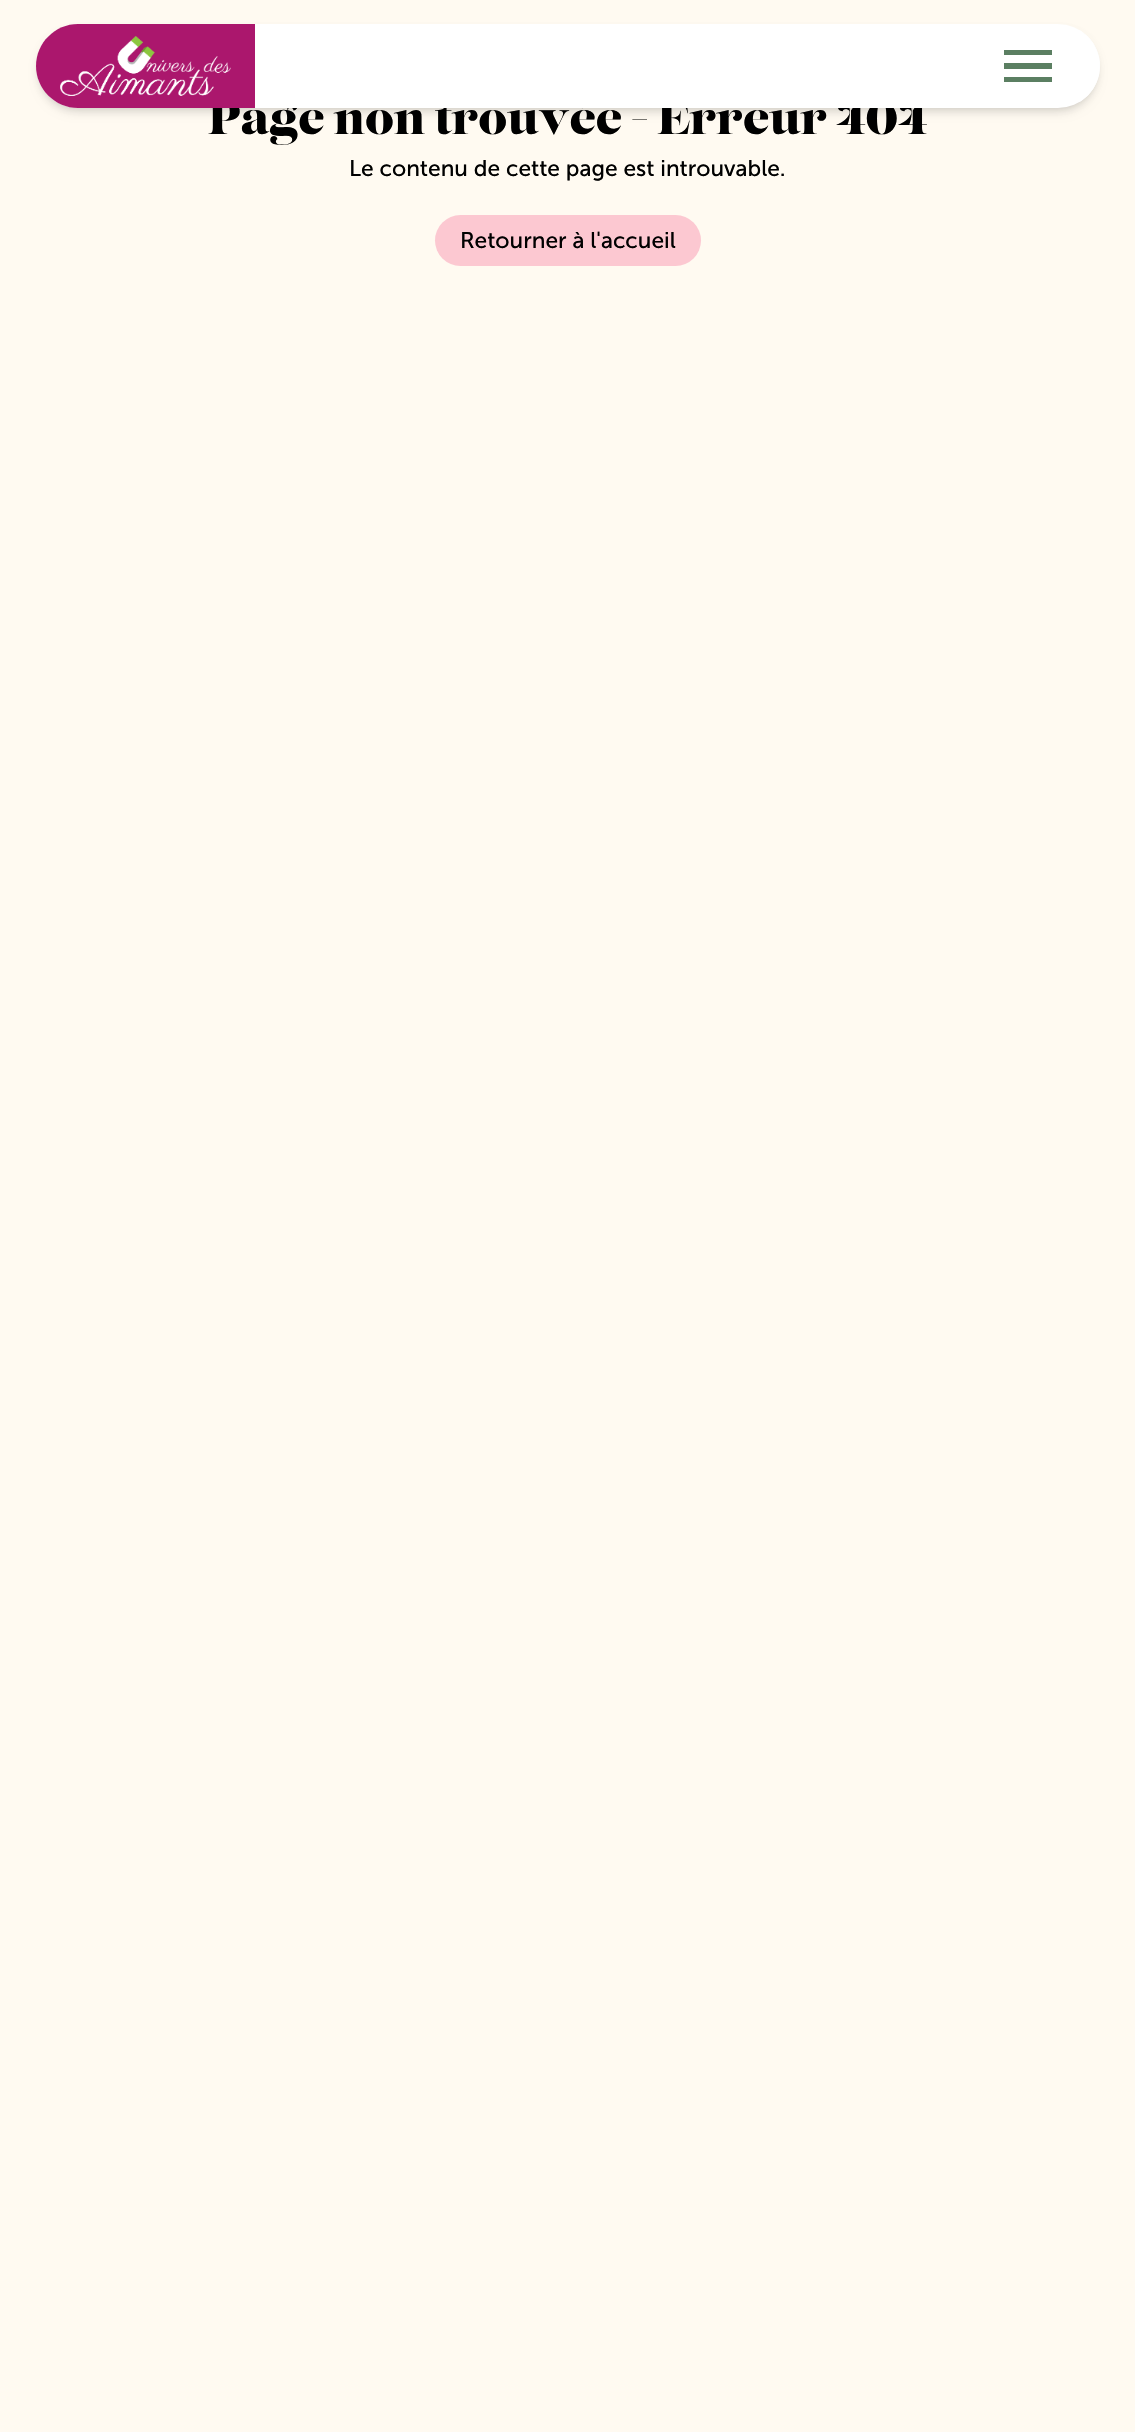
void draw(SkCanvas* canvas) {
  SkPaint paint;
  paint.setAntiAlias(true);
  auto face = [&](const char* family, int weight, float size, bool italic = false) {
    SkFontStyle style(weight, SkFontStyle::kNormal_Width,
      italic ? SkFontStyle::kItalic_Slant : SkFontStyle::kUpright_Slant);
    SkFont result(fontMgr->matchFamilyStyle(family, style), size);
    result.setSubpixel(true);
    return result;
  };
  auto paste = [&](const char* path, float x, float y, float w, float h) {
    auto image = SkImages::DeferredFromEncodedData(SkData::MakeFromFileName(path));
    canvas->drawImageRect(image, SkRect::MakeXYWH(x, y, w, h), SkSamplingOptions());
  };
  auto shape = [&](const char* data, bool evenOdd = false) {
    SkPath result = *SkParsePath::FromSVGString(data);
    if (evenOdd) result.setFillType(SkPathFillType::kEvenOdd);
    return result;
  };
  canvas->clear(0xfffffaf1);
  paint.setColor(0x1a000000);
  paint.setMaskFilter(SkMaskFilter::MakeBlur(kNormal_SkBlurStyle, 3));
  canvas->drawRoundRect(SkRect::MakeXYWH(39, 30, 1058, 78), 39, 39, paint);
  paint.setMaskFilter(nullptr);
  paint.setMaskFilter(SkMaskFilter::MakeBlur(kNormal_SkBlurStyle, 4.5f));
  canvas->drawRoundRect(SkRect::MakeXYWH(38, 32, 1060, 81), 40.5f, 40.5f, paint);
  paint.setMaskFilter(nullptr);
  paint.setColor(0xfffcc8d1);
  canvas->drawRoundRect(SkRect::MakeXYWH(435, 215, 266, 51), 25.5f, 25.5f, paint);
  auto f0 = face("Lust", 400, 45);
  paint.setColor(0xff000000);
  canvas->drawString("Page non trouvée - Erreur 404", 208, 134, f0, paint);
  paint.setColor(0xffffffff);
  canvas->drawRoundRect(SkRect::MakeXYWH(36, 24, 1064, 84), 42, 42, paint);
  canvas->save();
  canvas->clipPath(shape("M78 24H1058C1081 24 1100 43 1100 66C1100 89 1081 108 1058 108H78C55 108 36 89 36 66C36 43 55 24 78 24Z"), true);
  canvas->drawRect(SkRect::MakeXYWH(992, 30, 108, 72), paint);
  canvas->restore();
  {
    const struct { float x, y, w, h; SkColor color; } items[] = {
      {1004, 50, 48, 5, 0xff5b7f62},
      {1004, 63, 48, 6, 0xff5b7f62},
      {1004, 77, 48, 5, 0xff5b7f62},
    };
    for (auto [x, y, w, h, color] : items) {
      paint.setColor(color);
      canvas->drawRect(SkRect::MakeXYWH(x, y, w, h), paint);
    }
  }
  paint.setColor(0xffab176d);
  canvas->drawPath(shape("M78 24H255V108H78C55 108 36 89 36 66C36 43 55 24 78 24Z"), paint);
  paste("img/1.png", 60, 36, 171, 60);
  auto f1 = face("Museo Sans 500", 400, 22.75f);
  paint.setColor(0xff000000);
  canvas->drawString("Le contenu de cette page est introuvable.", 349, 176, f1, paint);
  canvas->drawString("Retourner à l'accueil", 460, 248, f1, paint);
}
